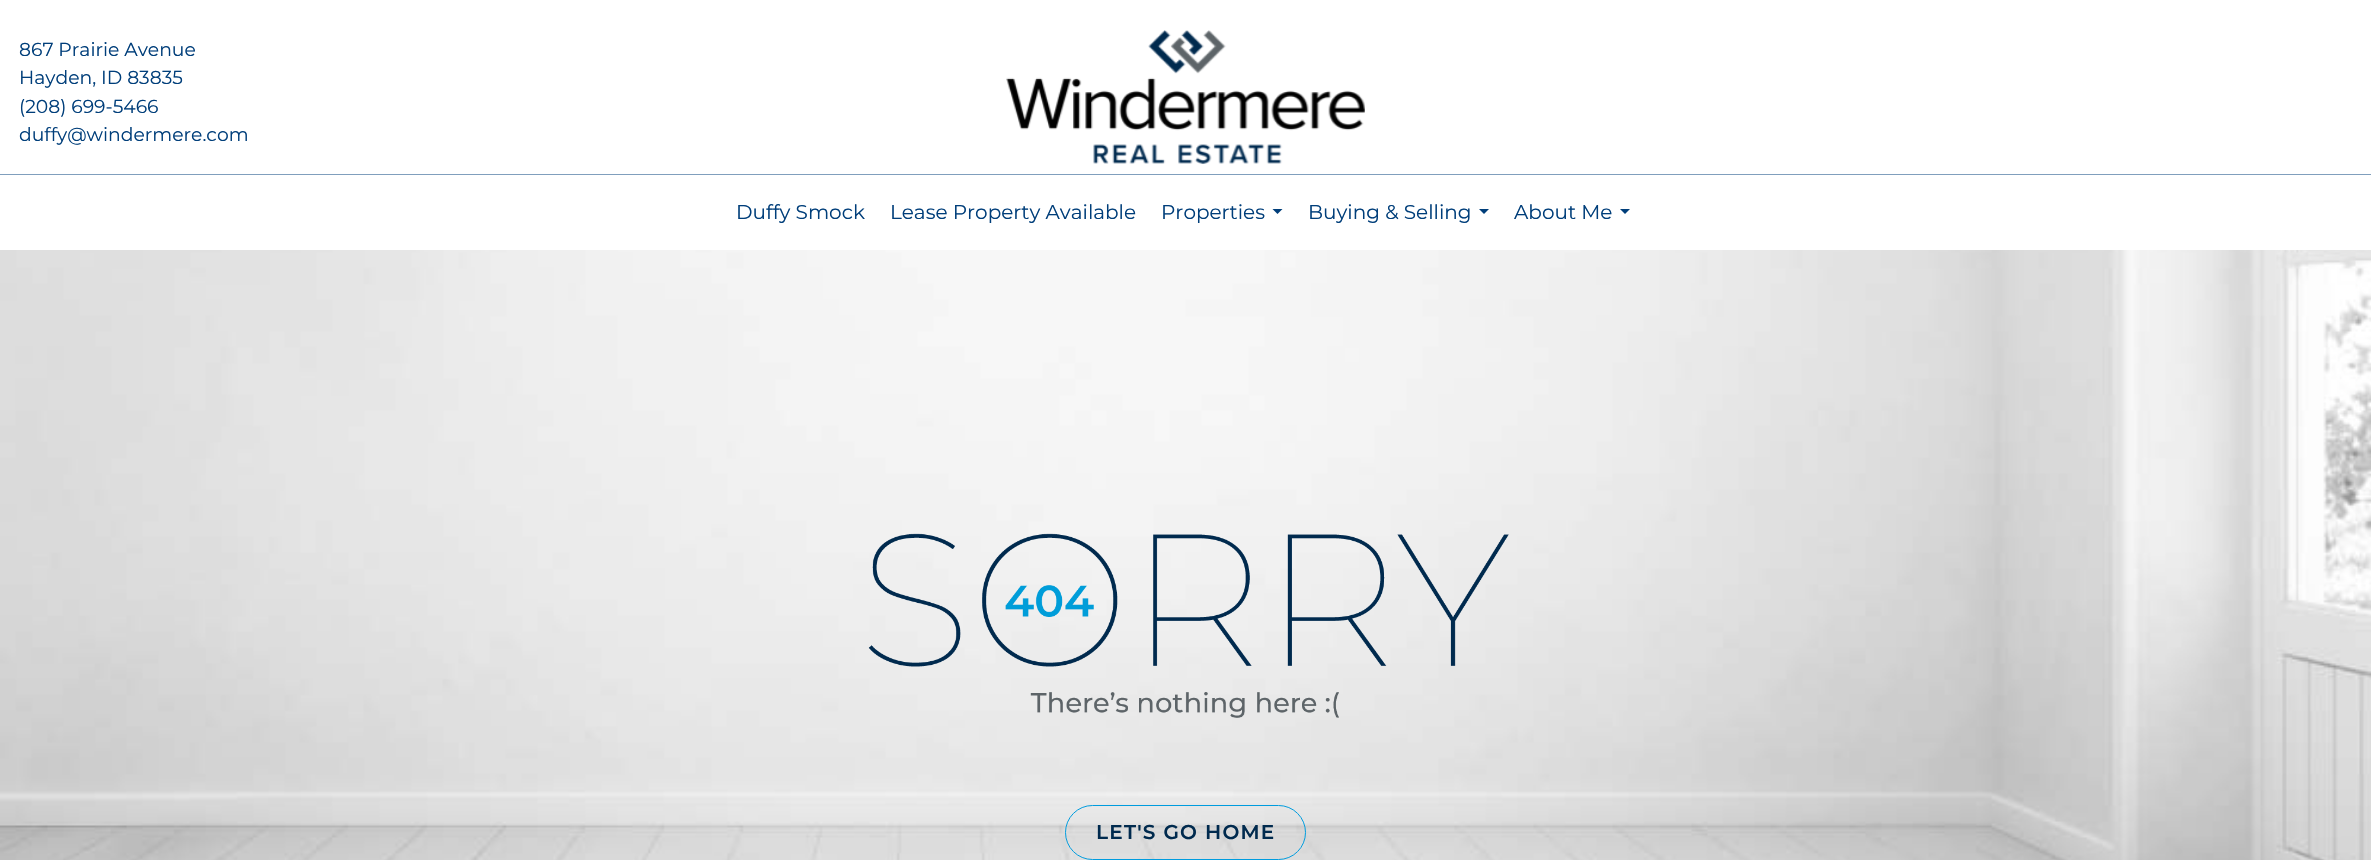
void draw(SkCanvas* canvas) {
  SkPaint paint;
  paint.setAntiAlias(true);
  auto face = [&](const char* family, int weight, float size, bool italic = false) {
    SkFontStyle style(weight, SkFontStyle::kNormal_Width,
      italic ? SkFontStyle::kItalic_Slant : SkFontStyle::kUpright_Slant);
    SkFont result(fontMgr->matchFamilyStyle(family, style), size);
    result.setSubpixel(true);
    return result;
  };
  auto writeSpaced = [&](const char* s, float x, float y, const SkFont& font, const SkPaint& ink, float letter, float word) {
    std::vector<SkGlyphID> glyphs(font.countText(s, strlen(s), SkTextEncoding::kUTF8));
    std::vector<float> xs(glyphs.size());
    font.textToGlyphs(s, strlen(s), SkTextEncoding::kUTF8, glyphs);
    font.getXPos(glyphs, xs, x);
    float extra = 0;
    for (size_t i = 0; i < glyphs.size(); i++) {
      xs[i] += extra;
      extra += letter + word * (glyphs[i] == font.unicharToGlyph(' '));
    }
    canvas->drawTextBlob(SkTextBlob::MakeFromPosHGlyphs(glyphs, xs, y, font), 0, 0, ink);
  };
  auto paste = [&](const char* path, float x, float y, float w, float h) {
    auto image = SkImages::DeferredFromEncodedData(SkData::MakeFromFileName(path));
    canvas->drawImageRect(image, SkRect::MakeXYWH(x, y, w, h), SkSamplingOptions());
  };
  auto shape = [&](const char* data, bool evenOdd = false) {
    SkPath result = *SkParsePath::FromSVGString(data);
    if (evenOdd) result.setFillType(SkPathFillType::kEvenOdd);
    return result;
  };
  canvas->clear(0xffffffff);
  paint.setColor(0xff809fbd);
  canvas->drawRect(SkRect::MakeXYWH(0, 174, 2371, 1), paint);
  paste("img/1.png", 1006, 30, 359, 134);
  paint.setColor(0xff003e7a);
  canvas->drawPath(shape("M1272.5 209H1282.5L1277.5 214Z"), paint);
  canvas->drawPath(shape("M1479 209H1489L1484 214Z"), paint);
  canvas->drawPath(shape("M1620 209H1630L1625 214Z"), paint);
  paste("img/2.png", 0, 250, 2371, 610);
  paste("img/3.png", 868, 533, 641, 185);
  paint.setStroke(true);
  paint.setStrokeWidth(1);
  paint.setColor(0xff009cde);
  canvas->drawRoundRect(SkRect::MakeXYWH(1065.5f, 805.5f, 240, 54), 27, 27, paint);
  auto f0 = face("Montserrat", 400, 18.75f);
  paint.setStroke(false);
  paint.setColor(0xff003e7a);
  {
    const struct { const char* s; float x, y; } items[] = {
      {"867 Prairie Avenue", 19, 56},
      {"Hayden, ID 83835", 19, 84},
      {"(208) 699-5466", 19, 113},
      {"duffy@windermere.com", 19, 141},
    };
    for (auto [s, x, y] : items) {
      canvas->drawString(s, x, y, f0, paint);
    }
  }
  auto f1 = face("Montserrat", 400, 20);
  {
    const struct { const char* s; float x, y; } items[] = {
      {"Duffy Smock", 736, 219},
      {"Lease Property Available", 890, 219},
      {"Properties", 1161, 219},
      {"Buying & Selling", 1308, 219},
      {"About Me", 1514, 219},
    };
    for (auto [s, x, y] : items) {
      canvas->drawString(s, x, y, f1, paint);
    }
  }
  auto f2 = face("Montserrat", 600, 20);
  paint.setColor(0xff002a4e);
  writeSpaced("LET'S GO HOME", 1096, 839, f2, paint, 1.25f, 0);
}
